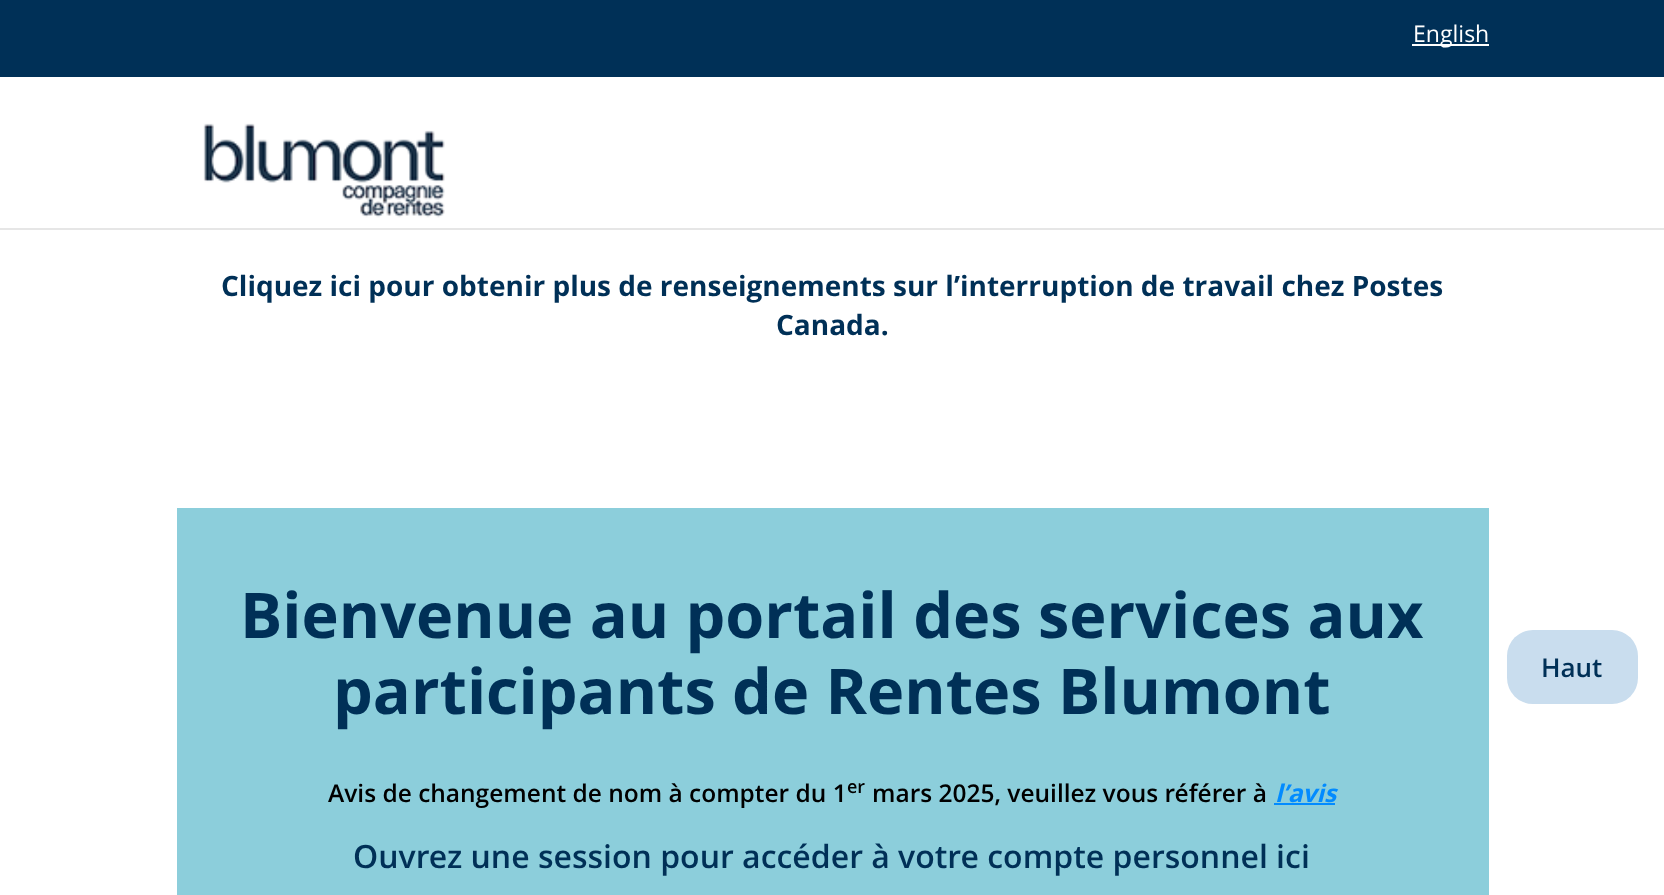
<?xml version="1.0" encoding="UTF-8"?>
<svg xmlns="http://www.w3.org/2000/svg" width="1664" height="895">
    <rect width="100%" height="100%" fill="#FFFFFF"/>
    <rect x="0" y="0" width="1664" height="77" fill="#003057"/>
    <rect x="1412" y="44" width="77" height="2" fill="#FFFFFF"/>
    <text x="1413" y="42" font-family="Open Sans" font-size="23" fill="#FFFFFF">English</text>
    <rect x="0" y="228" width="1664" height="2" fill="#E6E6E6"/>
    <image x="203" y="123" width="242" height="95" href="img_01.png"/>
    <text x="221" y="296" font-family="Open Sans" font-size="28" font-weight="700" fill="#003057">Cliquez ici pour obtenir plus de renseignements sur l’interruption de travail chez Postes</text>
    <text x="776" y="335" font-family="Open Sans" font-size="28" font-weight="700" fill="#003057">Canada.</text>
    <rect x="177" y="508" width="1312" height="387" fill="#8CCEDB"/>
    <text x="240" y="638" font-family="Open Sans" font-size="63" font-weight="700" fill="#003057">Bienvenue au portail des services aux</text>
    <text x="333" y="714" font-family="Open Sans" font-size="63" font-weight="700" fill="#003057">participants de Rentes Blumont</text>
    <text x="328" y="802" font-family="Open Sans" font-size="24.5" font-weight="600" fill="#000000">Avis de changement de nom à compter du 1</text>
    <text x="847" y="793" font-family="Open Sans" font-size="18" font-weight="600" fill="#000000">er</text>
    <text x="872" y="802" font-family="Open Sans" font-size="24.5" font-weight="600" fill="#000000">mars 2025, veuillez vous référer à</text>
    <text x="1275" y="802" font-family="Open Sans" font-size="24.5" font-weight="700" font-style="italic" fill="#028BFF">l’avis</text>
    <rect x="1274" y="803" width="61" height="2" fill="#028BFF"/>
    <text x="353" y="868" font-family="Open Sans" font-size="32" font-weight="600" fill="#003057">Ouvrez une session pour accéder à votre compte personnel ici</text>
    <rect x="1507" y="630" width="131" height="74" rx="26" fill="#C9DDEE"/>
    <text x="1541" y="677" font-family="Open Sans" font-size="26" font-weight="600" fill="#003057">Haut</text>
</svg>
